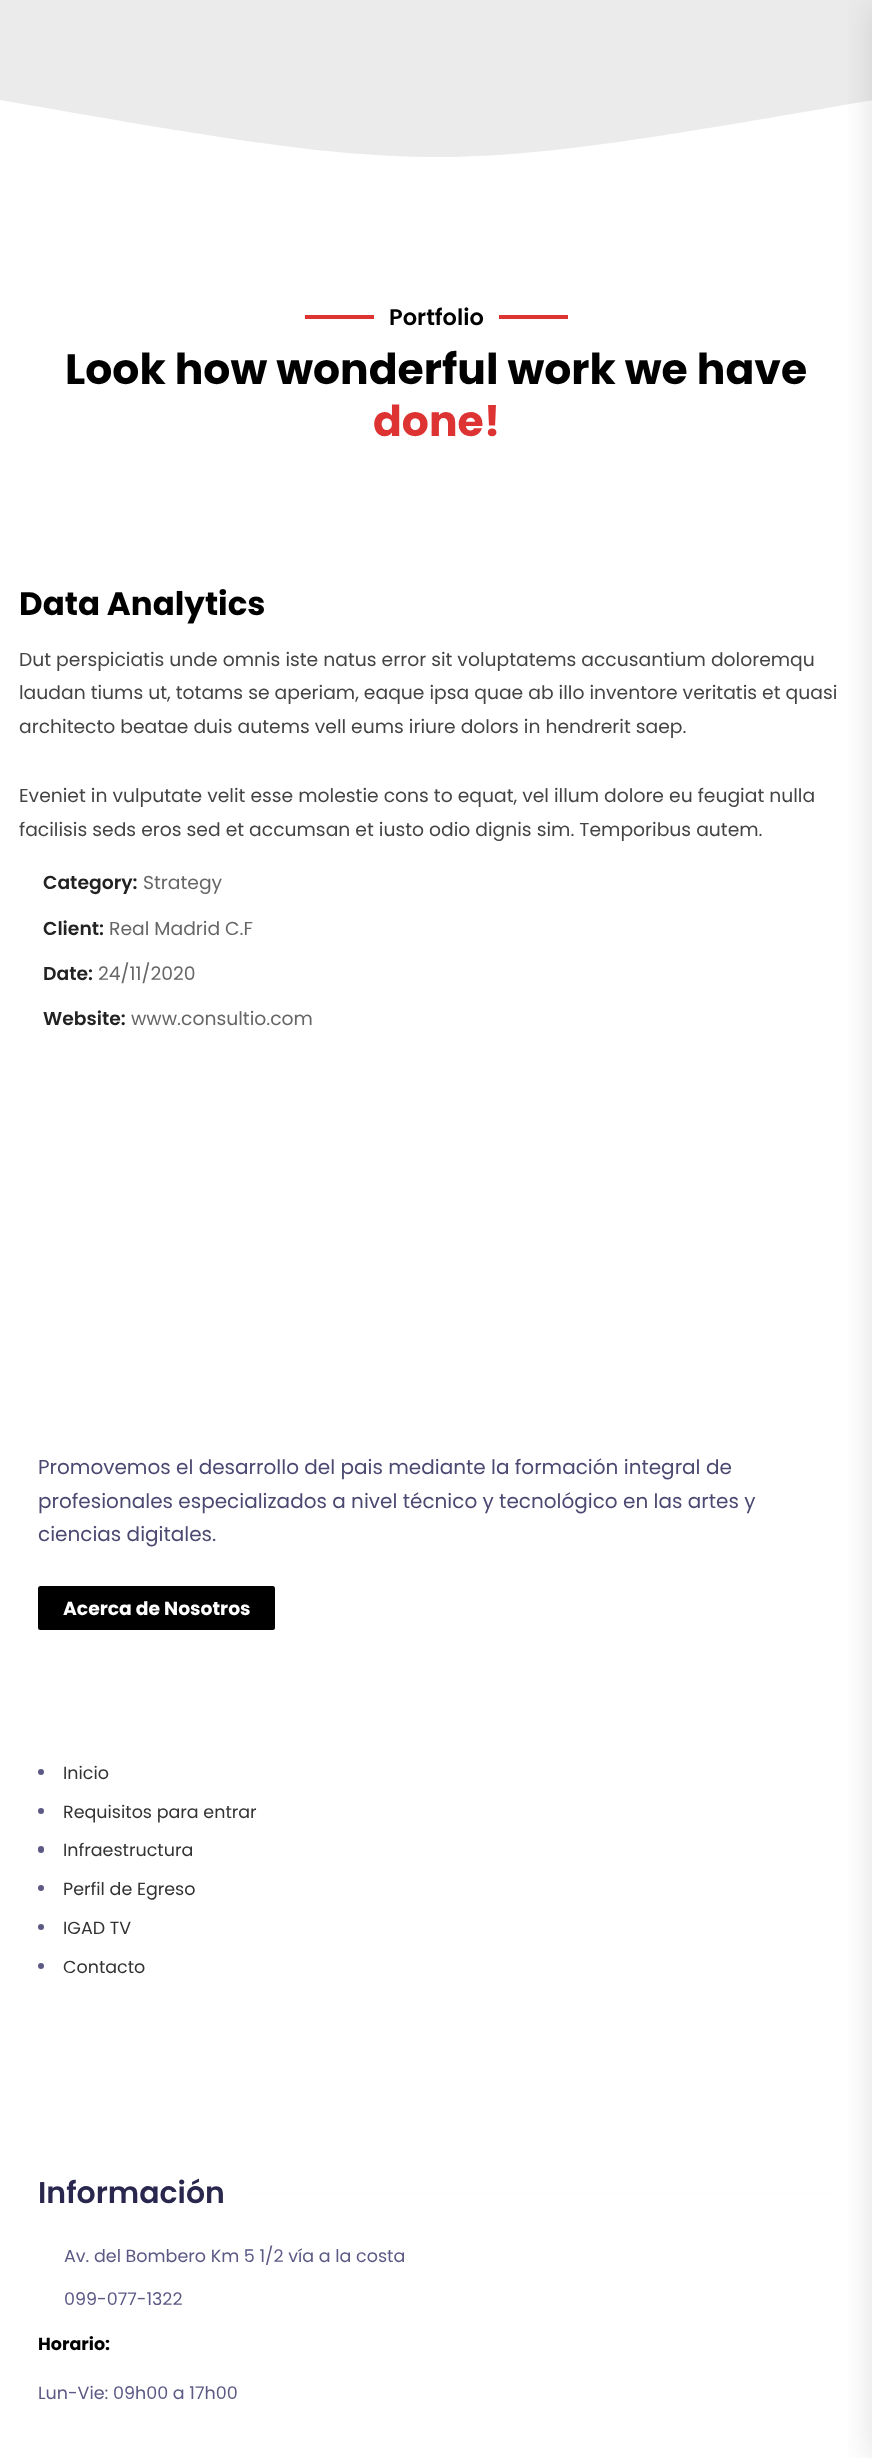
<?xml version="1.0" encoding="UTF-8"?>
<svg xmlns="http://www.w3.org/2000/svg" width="872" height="2458">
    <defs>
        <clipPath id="clip1"><rect x="0" y="100" width="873" height="75"/></clipPath>
        <filter id="blur1" x="-50%" y="-200%" width="200%" height="500%"><feGaussianBlur stdDeviation="17"/></filter>
    </defs>
    <rect width="100%" height="100%" fill="#FFFFFF"/>
    <rect x="0" y="0" width="872" height="157" fill="#EBEBEB"/>
    <g clip-path="url(#clip1)">
        <path d="M 0 100 C 436 176 436 176 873 100 V 176 H 0" fill="#FFFFFF"/>
    </g>
    <rect x="305" y="315" width="69" height="4" fill="#DD3333"/>
    <text x="389" y="325" font-family="Poppins" font-size="22.5" font-weight="600" fill="#000000">Portfolio</text>
    <rect x="499" y="315" width="69" height="4" fill="#DD3333"/>
    <text x="65" y="384" font-family="Poppins" font-size="42.5" font-weight="700" fill="#000000">Look how wonderful work we have</text>
    <text x="373" y="436" font-family="Poppins" font-size="42.5" font-weight="700" fill="#DD3333">done!</text>
    <text x="19" y="615" font-family="Poppins" font-size="32.5" font-weight="700" fill="#000000">Data Analytics</text>
    <text font-family="Poppins" font-size="18.75" fill="#444444">
        <tspan x="19" y="666">Dut perspiciatis unde omnis iste natus error sit voluptatems accusantium doloremqu</tspan>
        <tspan x="19" y="699">laudan tiums ut, totams se aperiam, eaque ipsa quae ab illo inventore veritatis et quasi</tspan>
        <tspan x="19" y="733">architecto beatae duis autems vell eums iriure dolors in hendrerit saep.</tspan>
    </text>
    <text font-family="Poppins" font-size="18.75" fill="#444444">
        <tspan x="19" y="802">Eveniet in vulputate velit esse molestie cons to equat, vel illum dolore eu feugiat nulla</tspan>
        <tspan x="19" y="836">facilisis seds eros sed et accumsan et iusto odio dignis sim. Temporibus autem.</tspan>
    </text>
    <text x="43" y="889" font-family="Poppins" font-size="18.75" font-weight="600" fill="#222222">Category:</text>
    <text x="143" y="889" font-family="Poppins" font-size="18.75" fill="#666666">Strategy</text>
    <text x="43" y="935" font-family="Poppins" font-size="18.75" font-weight="600" fill="#222222">Client:</text>
    <text x="109" y="935" font-family="Poppins" font-size="18.75" fill="#666666">Real Madrid C.F</text>
    <text x="43" y="980" font-family="Poppins" font-size="18.75" font-weight="600" fill="#222222">Date:</text>
    <text x="98" y="980" font-family="Poppins" font-size="18.75" fill="#666666">24/11/2020</text>
    <text x="43" y="1025" font-family="Poppins" font-size="18.75" font-weight="600" fill="#222222">Website:</text>
    <text x="131" y="1025" font-family="Poppins" font-size="18.75" fill="#666666">www.consultio.com</text>
    <text font-family="Poppins" font-size="20" fill="#4B4971">
        <tspan x="38" y="1474">Promovemos el desarrollo del pais mediante la formación integral de</tspan>
        <tspan x="38" y="1508">profesionales especializados a nivel técnico y tecnológico en las artes y</tspan>
        <tspan x="38" y="1541">ciencias digitales.</tspan>
    </text>
    <rect x="38" y="1586" width="237" height="44" rx="2.5" fill="#000000"/>
    <text x="63" y="1615" font-family="Poppins" font-size="18.75" font-weight="700" fill="#FFFFFF">Acerca de Nosotros</text>
    <circle cx="41" cy="1772" r="3" fill="#5C5A85"/>
    <text x="63" y="1779" font-family="Poppins" font-size="17.5" fill="#333333">Inicio</text>
    <circle cx="41" cy="1811" r="3" fill="#5C5A85"/>
    <text x="63" y="1818" font-family="Poppins" font-size="17.5" fill="#333333">Requisitos para entrar</text>
    <rect x="38" y="1846" width="6" height="7" rx="3" fill="#5C5A85"/>
    <text x="63" y="1856" font-family="Poppins" font-size="17.5" fill="#333333">Infraestructura</text>
    <circle cx="41" cy="1888" r="3" fill="#5C5A85"/>
    <text x="63" y="1895" font-family="Poppins" font-size="17.5" fill="#333333">Perfil de Egreso</text>
    <circle cx="41" cy="1927" r="3" fill="#5C5A85"/>
    <text x="63" y="1934" font-family="Poppins" font-size="17.5" fill="#333333">IGAD TV</text>
    <circle cx="41" cy="1966" r="3" fill="#5C5A85"/>
    <text x="63" y="1973" font-family="Poppins" font-size="17.5" fill="#333333">Contacto</text>
    <text x="38" y="2203" font-family="Poppins" font-size="30" font-weight="600" fill="#29274E">Información</text>
    <rect x="250" y="2193" width="585" height="1" fill="#FCFCFC"/>
    <text x="64" y="2262" font-family="Poppins" font-size="17.5" fill="#5C5A85">Av. del Bombero Km 5 1/2 vía a la costa</text>
    <text x="64" y="2305" font-family="Poppins" font-size="17.5" fill="#5C5A85">099-077-1322</text>
    <text x="38" y="2350" font-family="Poppins" font-size="17.5" font-weight="700" fill="#000000">Horario:</text>
    <text x="38" y="2399" font-family="Poppins" font-size="17.5" fill="#5C5A85">Lun-Vie: 09h00 a 17h00</text>
    <rect x="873" y="3" width="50" height="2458" fill="#363636" fill-opacity="0.13" filter="url(#blur1)"/>
</svg>
